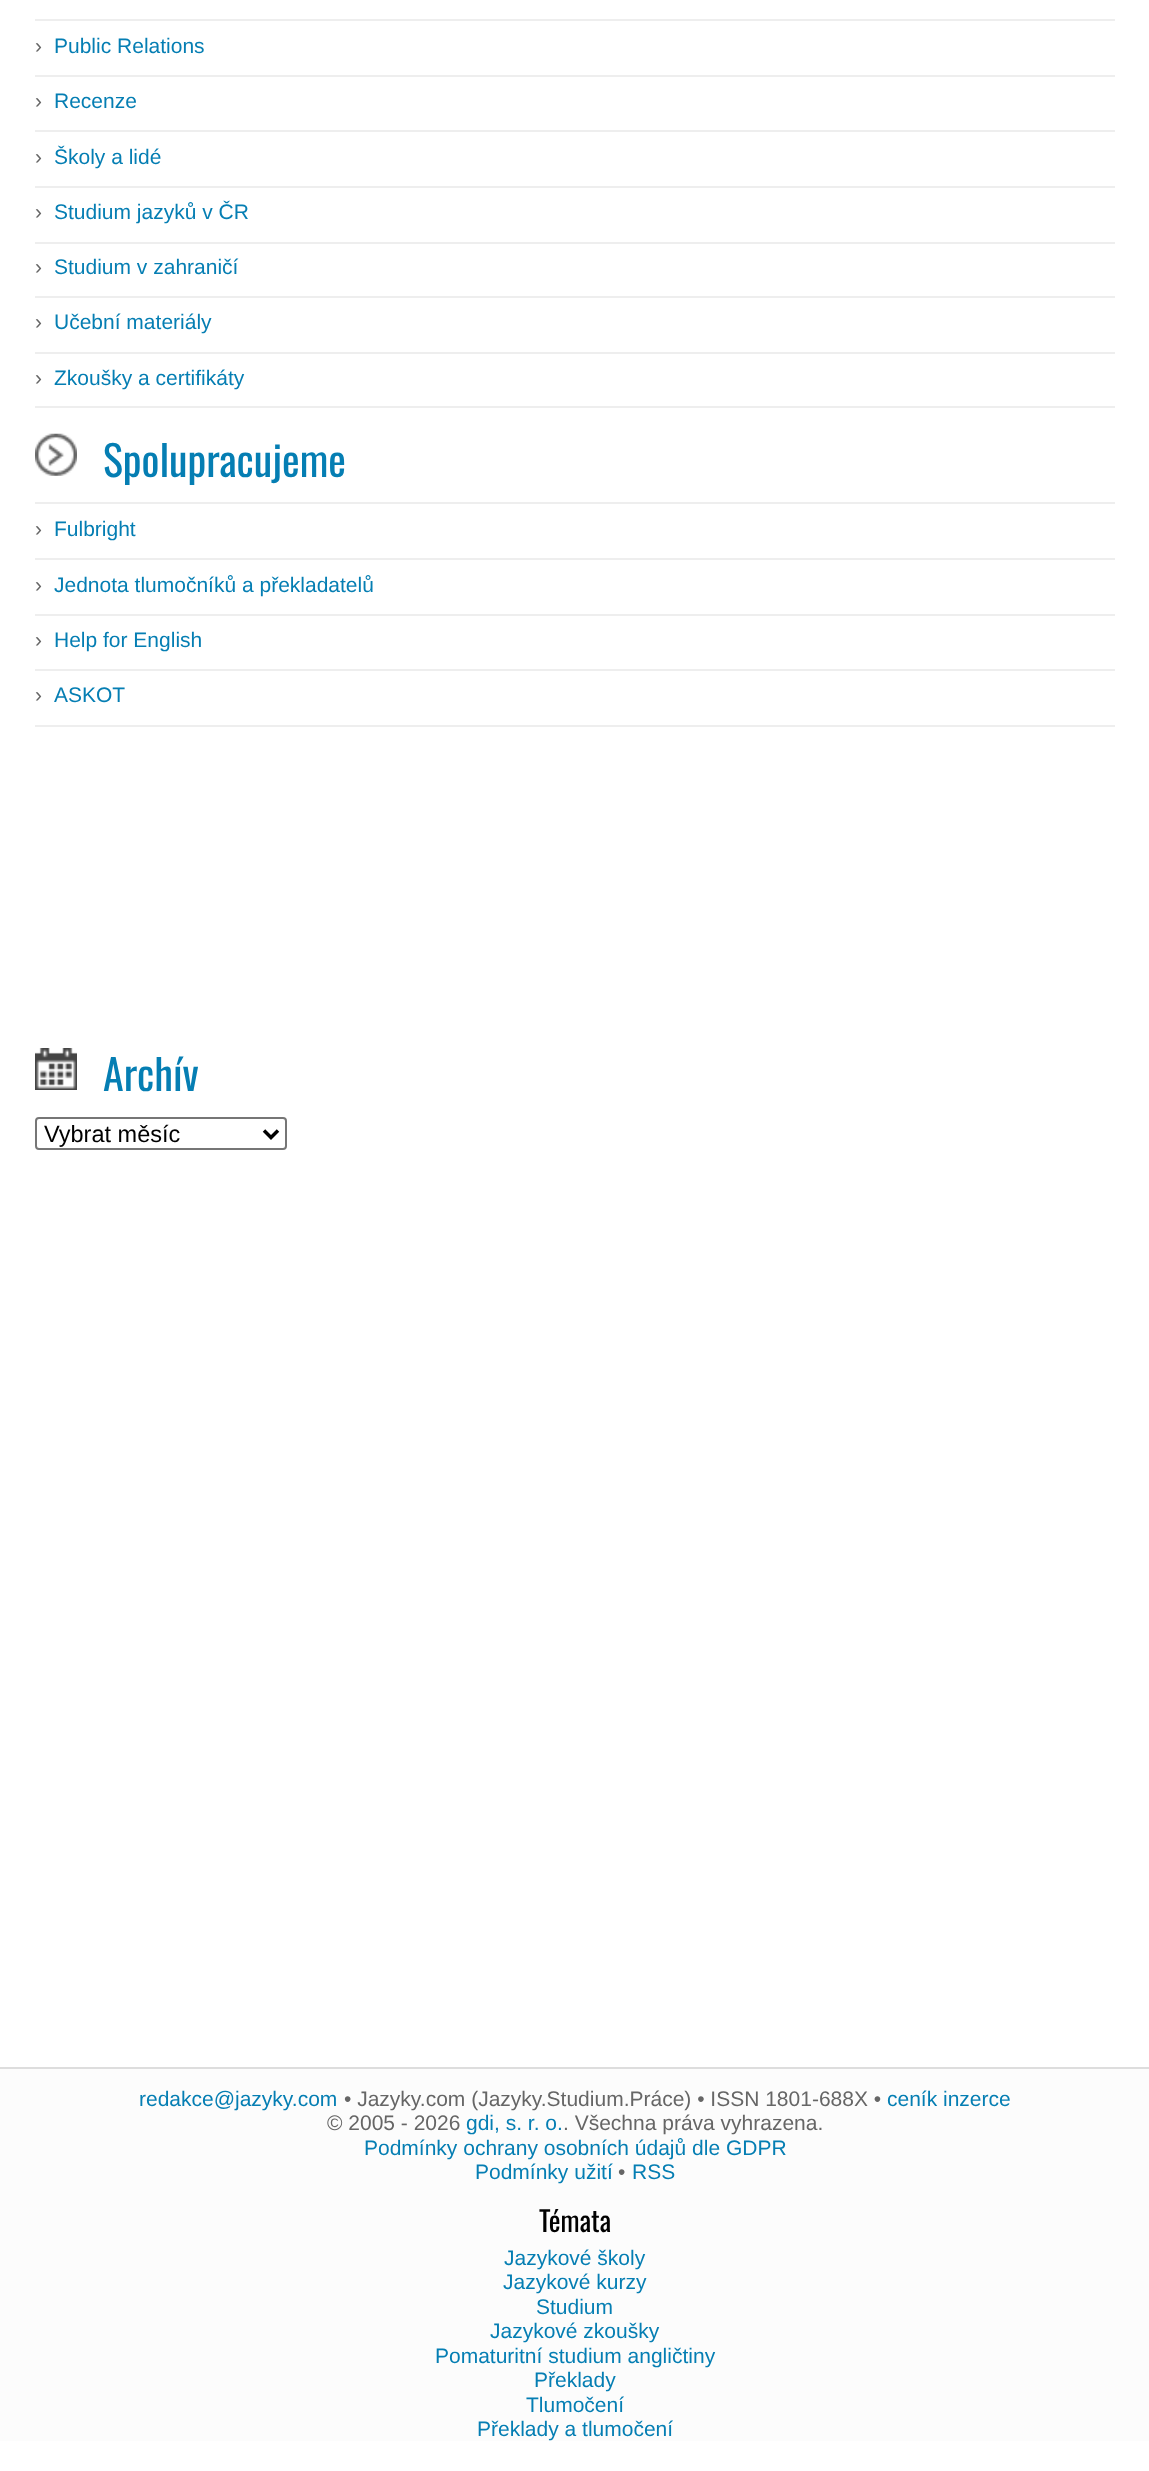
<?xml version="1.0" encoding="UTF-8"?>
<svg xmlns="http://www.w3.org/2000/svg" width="1149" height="2471">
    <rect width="100%" height="100%" fill="#FFFFFF"/>
    <rect x="35" y="19" width="1080" height="2" fill="#EEEEEE"/>
    <rect x="35" y="75" width="1080" height="2" fill="#EEEEEE"/>
    <text x="35" y="53" font-family="Liberation Sans" font-size="21" fill="#666666">›</text>
    <text x="54" y="53" font-family="Liberation Sans" font-size="21" fill="#057EB3">Public Relations</text>
    <rect x="35" y="130" width="1080" height="2" fill="#EEEEEE"/>
    <text x="35" y="108" font-family="Liberation Sans" font-size="21" fill="#666666">›</text>
    <text x="54" y="108" font-family="Liberation Sans" font-size="21" fill="#057EB3">Recenze</text>
    <rect x="35" y="186" width="1080" height="2" fill="#EEEEEE"/>
    <text x="35" y="164" font-family="Liberation Sans" font-size="21" fill="#666666">›</text>
    <text x="54" y="164" font-family="Liberation Sans" font-size="21" fill="#057EB3">Školy a lidé</text>
    <rect x="35" y="242" width="1080" height="2" fill="#EEEEEE"/>
    <text x="35" y="219" font-family="Liberation Sans" font-size="21" fill="#666666">›</text>
    <text x="54" y="219" font-family="Liberation Sans" font-size="21" fill="#057EB3">Studium jazyků v ČR</text>
    <rect x="35" y="296" width="1080" height="2" fill="#EEEEEE"/>
    <text x="35" y="274" font-family="Liberation Sans" font-size="21" fill="#666666">›</text>
    <text x="54" y="274" font-family="Liberation Sans" font-size="21" fill="#057EB3">Studium v zahraničí</text>
    <rect x="35" y="352" width="1080" height="2" fill="#EEEEEE"/>
    <text x="35" y="329" font-family="Liberation Sans" font-size="21" fill="#666666">›</text>
    <text x="54" y="329" font-family="Liberation Sans" font-size="21" fill="#057EB3">Učební materiály</text>
    <rect x="35" y="406" width="1080" height="2" fill="#EEEEEE"/>
    <text x="35" y="385" font-family="Liberation Sans" font-size="21" fill="#666666">›</text>
    <text x="54" y="385" font-family="Liberation Sans" font-size="21" fill="#057EB3">Zkoušky a certifikáty</text>
    <image x="35" y="433" width="42" height="43" href="img_01.png"/>
    <text x="103" y="477" font-family="Oswald" font-size="42" fill="#057EB3">Spolupracujeme</text>
    <rect x="35" y="502" width="1080" height="2" fill="#EEEEEE"/>
    <rect x="35" y="558" width="1080" height="2" fill="#EEEEEE"/>
    <text x="35" y="536" font-family="Liberation Sans" font-size="21" fill="#666666">›</text>
    <text x="54" y="536" font-family="Liberation Sans" font-size="21" fill="#057EB3">Fulbright</text>
    <rect x="35" y="614" width="1080" height="2" fill="#EEEEEE"/>
    <text x="35" y="592" font-family="Liberation Sans" font-size="21" fill="#666666">›</text>
    <text x="54" y="592" font-family="Liberation Sans" font-size="21" fill="#057EB3">Jednota tlumočníků a překladatelů</text>
    <rect x="35" y="669" width="1080" height="2" fill="#EEEEEE"/>
    <text x="35" y="647" font-family="Liberation Sans" font-size="21" fill="#666666">›</text>
    <text x="54" y="647" font-family="Liberation Sans" font-size="21" fill="#057EB3">Help for English</text>
    <rect x="35" y="725" width="1080" height="2" fill="#EEEEEE"/>
    <text x="35" y="702" font-family="Liberation Sans" font-size="21" fill="#666666">›</text>
    <text x="54" y="702" font-family="Liberation Sans" font-size="21" fill="#057EB3">ASKOT</text>
    <image x="35" y="1048" width="42" height="42" href="img_02.png"/>
    <text x="103" y="1091" font-family="Oswald" font-size="42" fill="#057EB3">Archív</text>
    <rect x="36" y="1118" width="250" height="31" rx="3" fill="none" stroke="#767676" stroke-width="2"/>
    <path d="M 264 1130.5 L 271 1137.5 L 278 1130.5" fill="none" stroke="#000000" stroke-width="3.5"/>
    <text x="44" y="1142" font-family="Liberation Sans" font-size="23.5" fill="#000000">Vybrat měsíc</text>
    <rect x="0" y="2069" width="1149" height="372" fill="#FCFCFC"/>
    <rect x="0" y="2067" width="1149" height="2" fill="#DDDDDD"/>
    <text x="139" y="2106" font-family="Liberation Sans" font-size="21" fill="#057EB3">redakce@jazyky.com</text>
    <text x="344" y="2106" font-family="Liberation Sans" font-size="21" fill="#666666">• Jazyky.com (Jazyky.Studium.Práce) • ISSN 1801-688X •</text>
    <text x="887" y="2106" font-family="Liberation Sans" font-size="21" fill="#057EB3">ceník inzerce</text>
    <text x="327" y="2130" font-family="Liberation Sans" font-size="21" fill="#666666">© 2005 - 2026</text>
    <text x="466" y="2130" font-family="Liberation Sans" font-size="21" fill="#057EB3">gdi, s. r. o.</text>
    <text x="563" y="2130" font-family="Liberation Sans" font-size="21" fill="#666666">. Všechna práva vyhrazena.</text>
    <text x="364" y="2155" font-family="Liberation Sans" font-size="21" fill="#057EB3">Podmínky ochrany osobních údajů dle GDPR</text>
    <text x="475" y="2179" font-family="Liberation Sans" font-size="21" fill="#057EB3">Podmínky užití</text>
    <text x="618" y="2179" font-family="Liberation Sans" font-size="21" fill="#666666">•</text>
    <text x="632" y="2179" font-family="Liberation Sans" font-size="21" fill="#057EB3">RSS</text>
    <text x="539" y="2232" font-family="Oswald" font-size="28" fill="#000000">Témata</text>
    <text x="504" y="2265" font-family="Liberation Sans" font-size="21" fill="#057EB3">Jazykové školy</text>
    <text x="503" y="2289" font-family="Liberation Sans" font-size="21" fill="#057EB3">Jazykové kurzy</text>
    <text x="536" y="2314" font-family="Liberation Sans" font-size="21" fill="#057EB3">Studium</text>
    <text x="490" y="2338" font-family="Liberation Sans" font-size="21" fill="#057EB3">Jazykové zkoušky</text>
    <text x="435" y="2363" font-family="Liberation Sans" font-size="21" fill="#057EB3">Pomaturitní studium angličtiny</text>
    <text x="534" y="2387" font-family="Liberation Sans" font-size="21" fill="#057EB3">Překlady</text>
    <text x="526" y="2412" font-family="Liberation Sans" font-size="21" fill="#057EB3">Tlumočení</text>
    <text x="477" y="2436" font-family="Liberation Sans" font-size="21" fill="#057EB3">Překlady a tlumočení</text>
</svg>
